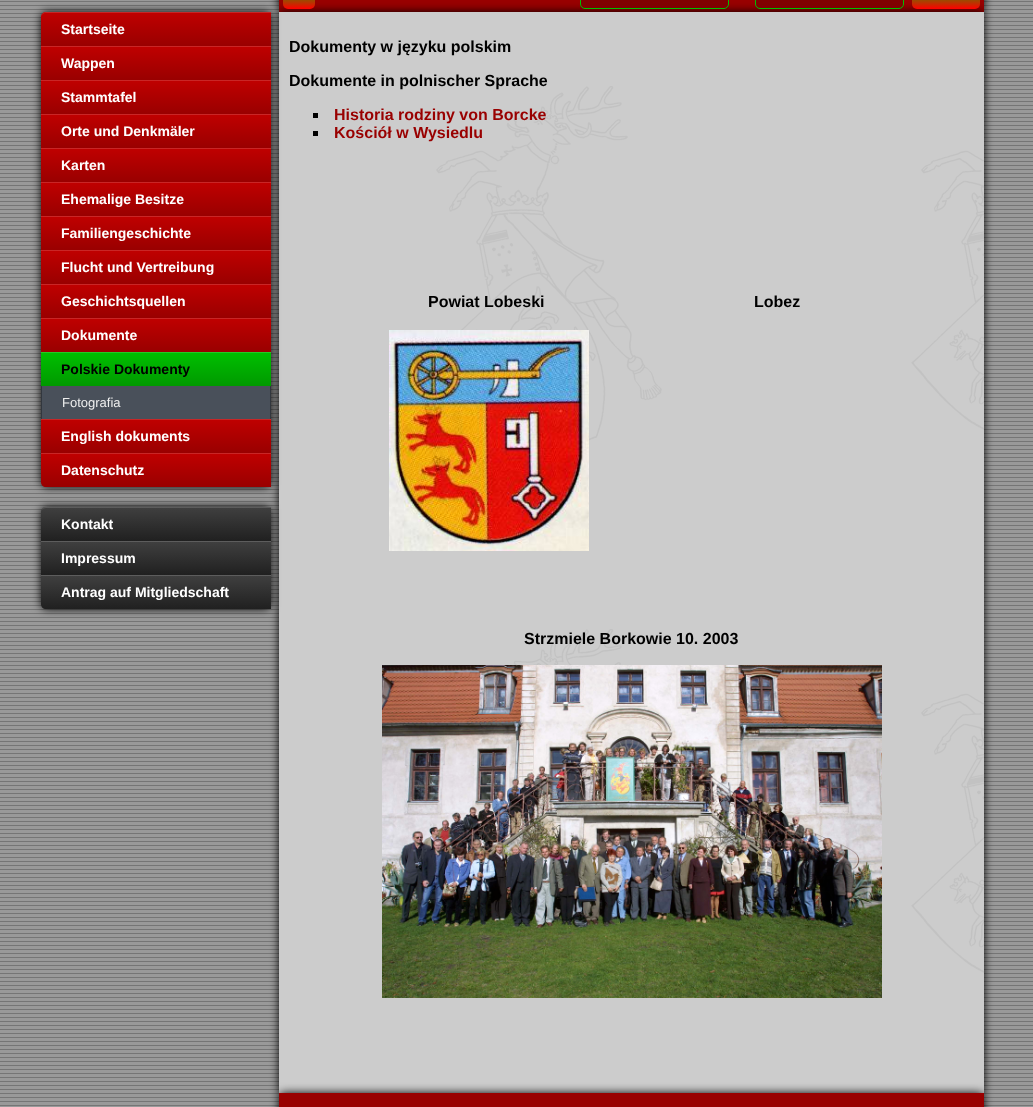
<?xml version="1.0" encoding="UTF-8"?>
<svg xmlns="http://www.w3.org/2000/svg" width="1033" height="1107">
    <defs>
        <filter id="blur1" x="-50%" y="-200%" width="200%" height="500%"><feGaussianBlur stdDeviation="5"/></filter>
        <linearGradient id="g1" gradientUnits="userSpaceOnUse" x1="299" y1="-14" x2="299" y2="9"><stop offset="0" stop-color="#00C000"/><stop offset="1" stop-color="#FF0000"/></linearGradient>
        <linearGradient id="g2" gradientUnits="userSpaceOnUse" x1="946" y1="-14" x2="946" y2="9"><stop offset="0" stop-color="#00C000"/><stop offset="1" stop-color="#FF0000"/></linearGradient>
        <linearGradient id="g3" gradientUnits="userSpaceOnUse" x1="156" y1="12" x2="156" y2="46"><stop offset="0" stop-color="#C00000"/><stop offset="1" stop-color="#990000"/></linearGradient>
        <linearGradient id="g4" gradientUnits="userSpaceOnUse" x1="156" y1="46" x2="156" y2="80"><stop offset="0" stop-color="#C00000"/><stop offset="1" stop-color="#990000"/></linearGradient>
        <linearGradient id="g5" gradientUnits="userSpaceOnUse" x1="156" y1="80" x2="156" y2="114"><stop offset="0" stop-color="#C00000"/><stop offset="1" stop-color="#990000"/></linearGradient>
        <linearGradient id="g6" gradientUnits="userSpaceOnUse" x1="156" y1="114" x2="156" y2="148"><stop offset="0" stop-color="#C00000"/><stop offset="1" stop-color="#990000"/></linearGradient>
        <linearGradient id="g7" gradientUnits="userSpaceOnUse" x1="156" y1="148" x2="156" y2="182"><stop offset="0" stop-color="#C00000"/><stop offset="1" stop-color="#990000"/></linearGradient>
        <linearGradient id="g8" gradientUnits="userSpaceOnUse" x1="156" y1="182" x2="156" y2="216"><stop offset="0" stop-color="#C00000"/><stop offset="1" stop-color="#990000"/></linearGradient>
        <linearGradient id="g9" gradientUnits="userSpaceOnUse" x1="156" y1="216" x2="156" y2="250"><stop offset="0" stop-color="#C00000"/><stop offset="1" stop-color="#990000"/></linearGradient>
        <linearGradient id="g10" gradientUnits="userSpaceOnUse" x1="156" y1="250" x2="156" y2="284"><stop offset="0" stop-color="#C00000"/><stop offset="1" stop-color="#990000"/></linearGradient>
        <linearGradient id="g11" gradientUnits="userSpaceOnUse" x1="156" y1="284" x2="156" y2="318"><stop offset="0" stop-color="#C00000"/><stop offset="1" stop-color="#990000"/></linearGradient>
        <linearGradient id="g12" gradientUnits="userSpaceOnUse" x1="156" y1="318" x2="156" y2="352"><stop offset="0" stop-color="#C00000"/><stop offset="1" stop-color="#990000"/></linearGradient>
        <linearGradient id="g13" gradientUnits="userSpaceOnUse" x1="156" y1="352" x2="156" y2="386"><stop offset="0" stop-color="#00C000"/><stop offset="1" stop-color="#009900"/></linearGradient>
        <linearGradient id="g14" gradientUnits="userSpaceOnUse" x1="156" y1="419" x2="156" y2="453"><stop offset="0" stop-color="#C00000"/><stop offset="1" stop-color="#990000"/></linearGradient>
        <linearGradient id="g15" gradientUnits="userSpaceOnUse" x1="156" y1="453" x2="156" y2="487"><stop offset="0" stop-color="#C00000"/><stop offset="1" stop-color="#990000"/></linearGradient>
        <linearGradient id="g16" gradientUnits="userSpaceOnUse" x1="156" y1="507" x2="156" y2="541"><stop offset="0" stop-color="#404040"/><stop offset="1" stop-color="#202020"/></linearGradient>
        <linearGradient id="g17" gradientUnits="userSpaceOnUse" x1="156" y1="541" x2="156" y2="575"><stop offset="0" stop-color="#404040"/><stop offset="1" stop-color="#202020"/></linearGradient>
        <linearGradient id="g18" gradientUnits="userSpaceOnUse" x1="156" y1="575" x2="156" y2="609"><stop offset="0" stop-color="#404040"/><stop offset="1" stop-color="#202020"/></linearGradient>
    </defs>
    <rect width="100%" height="100%" fill="#FFFFFF"/>
    <image x="0" y="0" width="1033" height="1107" href="img_01.png"/>
    <rect x="279" y="-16" width="705" height="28" rx="5" fill="#000000" filter="url(#blur1)"/>
    <rect x="279" y="0" width="705" height="12" fill="#990000"/>
    <rect x="279" y="12" width="705" height="1081" fill="#000000" filter="url(#blur1)"/>
    <rect x="283" y="-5" width="32" height="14" rx="5" fill="url(#g1)"/>
    <rect x="580.5" y="-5.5" width="148" height="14" rx="4.5" fill="#800000" stroke="#00C000"/>
    <rect x="755.5" y="-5.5" width="148" height="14" rx="4.5" fill="#800000" stroke="#00C000"/>
    <rect x="912" y="-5" width="68" height="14" rx="5" fill="url(#g2)"/>
    <image x="279" y="12" width="705" height="1081" href="img_02.png"/>
    <rect x="41" y="12" width="230" height="475" rx="5" fill="#000000" filter="url(#blur1)"/>
    <path d="M 46 12 H 271 V 46 H 41 V 17 C 41 14 43 12 46 12 Z" fill="url(#g3)"/>
    <path d="M 46 13 H 271 V 12 H 46 C 43 12 41 15 41 18 C 41 15 43 13 46 13 Z" fill="#FFFFFF" fill-opacity="0.15"/>
    <text x="61" y="34" font-family="Liberation Sans" font-size="14" font-weight="700" fill="#FFFFFF">Startseite</text>
    <rect x="41" y="47" width="230" height="33" fill="url(#g4)"/>
    <rect x="41" y="46" width="230" height="1" fill="#C92626"/>
    <text x="61" y="68" font-family="Liberation Sans" font-size="14" font-weight="700" fill="#FFFFFF">Wappen</text>
    <rect x="41" y="81" width="230" height="33" fill="url(#g5)"/>
    <rect x="41" y="80" width="230" height="1" fill="#C92626"/>
    <text x="61" y="102" font-family="Liberation Sans" font-size="14" font-weight="700" fill="#FFFFFF">Stammtafel</text>
    <rect x="41" y="115" width="230" height="33" fill="url(#g6)"/>
    <rect x="41" y="114" width="230" height="1" fill="#C92626"/>
    <text x="61" y="136" font-family="Liberation Sans" font-size="14" font-weight="700" fill="#FFFFFF">Orte und Denkmäler</text>
    <rect x="41" y="149" width="230" height="33" fill="url(#g7)"/>
    <rect x="41" y="148" width="230" height="1" fill="#C92626"/>
    <text x="61" y="170" font-family="Liberation Sans" font-size="14" font-weight="700" fill="#FFFFFF">Karten</text>
    <rect x="41" y="183" width="230" height="33" fill="url(#g8)"/>
    <rect x="41" y="182" width="230" height="1" fill="#C92626"/>
    <text x="61" y="204" font-family="Liberation Sans" font-size="14" font-weight="700" fill="#FFFFFF">Ehemalige Besitze</text>
    <rect x="41" y="217" width="230" height="33" fill="url(#g9)"/>
    <rect x="41" y="216" width="230" height="1" fill="#C92626"/>
    <text x="61" y="238" font-family="Liberation Sans" font-size="14" font-weight="700" fill="#FFFFFF">Familiengeschichte</text>
    <rect x="41" y="251" width="230" height="33" fill="url(#g10)"/>
    <rect x="41" y="250" width="230" height="1" fill="#C92626"/>
    <text x="61" y="272" font-family="Liberation Sans" font-size="14" font-weight="700" fill="#FFFFFF">Flucht und Vertreibung</text>
    <rect x="41" y="285" width="230" height="33" fill="url(#g11)"/>
    <rect x="41" y="284" width="230" height="1" fill="#C92626"/>
    <text x="61" y="306" font-family="Liberation Sans" font-size="14" font-weight="700" fill="#FFFFFF">Geschichtsquellen</text>
    <rect x="41" y="319" width="230" height="33" fill="url(#g12)"/>
    <rect x="41" y="318" width="230" height="1" fill="#C92626"/>
    <text x="61" y="340" font-family="Liberation Sans" font-size="14" font-weight="700" fill="#FFFFFF">Dokumente</text>
    <rect x="41" y="353" width="230" height="33" fill="url(#g13)"/>
    <rect x="41" y="352" width="230" height="1" fill="#26C926"/>
    <text x="61" y="374" font-family="Liberation Sans" font-size="14" font-weight="700" fill="#000000">Polskie Dokumenty</text>
    <rect x="42" y="386" width="228" height="33" fill="#49505A"/>
    <rect x="270" y="386" width="1" height="33" fill="#32373E"/>
    <rect x="41" y="386" width="1" height="33" fill="#32373E"/>
    <text x="62" y="407" font-family="Liberation Sans" font-size="13" fill="#EEEEEE">Fotografia</text>
    <rect x="41" y="420" width="230" height="33" fill="url(#g14)"/>
    <rect x="41" y="419" width="230" height="1" fill="#C92626"/>
    <text x="61" y="441" font-family="Liberation Sans" font-size="14" font-weight="700" fill="#FFFFFF">English dokuments</text>
    <path d="M 41 453 H 271 V 487 H 46 C 43 487 41 485 41 482 Z" fill="url(#g15)"/>
    <rect x="41" y="453" width="230" height="1" fill="#C92626"/>
    <text x="61" y="475" font-family="Liberation Sans" font-size="14" font-weight="700" fill="#FFFFFF">Datenschutz</text>
    <rect x="41" y="507" width="230" height="102" rx="5" fill="#000000" filter="url(#blur1)"/>
    <path d="M 46 507 H 271 V 541 H 41 V 512 C 41 509 43 507 46 507 Z" fill="url(#g16)"/>
    <path d="M 46 508 H 271 V 507 H 46 C 43 507 41 510 41 513 C 41 510 43 508 46 508 Z" fill="#FFFFFF" fill-opacity="0.15"/>
    <text x="61" y="529" font-family="Liberation Sans" font-size="14" font-weight="700" fill="#FFFFFF">Kontakt</text>
    <rect x="41" y="542" width="230" height="33" fill="url(#g17)"/>
    <rect x="41" y="541" width="230" height="1" fill="#5D5D5D"/>
    <text x="61" y="563" font-family="Liberation Sans" font-size="14" font-weight="700" fill="#FFFFFF">Impressum</text>
    <path d="M 41 575 H 271 V 609 H 46 C 43 609 41 607 41 604 Z" fill="url(#g18)"/>
    <rect x="41" y="575" width="230" height="1" fill="#5D5D5D"/>
    <text x="61" y="597" font-family="Liberation Sans" font-size="14" font-weight="700" fill="#FFFFFF">Antrag auf Mitgliedschaft</text>
    <text x="289" y="52" font-family="Liberation Sans" font-size="16" font-weight="700" fill="#000000">Dokumenty w języku polskim</text>
    <text x="289" y="86" font-family="Liberation Sans" font-size="16" font-weight="700" fill="#000000">Dokumente in polnischer Sprache</text>
    <rect x="313" y="113" width="5" height="5" fill="#000000"/>
    <text x="334" y="120" font-family="Liberation Sans" font-size="16" font-weight="700" fill="#990000">Historia rodziny von Borcke</text>
    <rect x="313" y="131" width="5" height="5" fill="#000000"/>
    <text x="334" y="138" font-family="Liberation Sans" font-size="16" font-weight="700" fill="#990000">Kościół w Wysiedlu</text>
    <text x="428" y="307" font-family="Liberation Sans" font-size="16" font-weight="700" fill="#000000">Powiat Lobeski</text>
    <text x="754" y="307" font-family="Liberation Sans" font-size="16" font-weight="700" fill="#000000">Lobez</text>
    <image x="389" y="330" width="200" height="221" href="img_03.png"/>
    <text x="524" y="644" font-family="Liberation Sans" font-size="16" font-weight="700" fill="#000000">Strzmiele Borkowie 10. 2003</text>
    <image x="382" y="665" width="500" height="333" href="img_04.png"/>
    <rect x="279" y="1093" width="705" height="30" rx="5" fill="#000000" filter="url(#blur1)"/>
    <rect x="279" y="1093" width="705" height="14" fill="#990000"/>
</svg>
